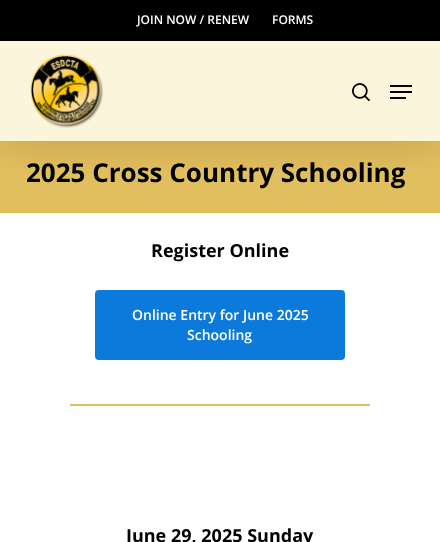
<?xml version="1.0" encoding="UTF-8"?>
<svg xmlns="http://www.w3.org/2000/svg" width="440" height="542">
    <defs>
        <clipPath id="clip1"><rect x="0" y="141" width="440" height="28"/></clipPath>
        <filter id="blur1" x="-50%" y="-200%" width="200%" height="500%"><feGaussianBlur stdDeviation="22.5"/></filter>
    </defs>
    <rect width="100%" height="100%" fill="#FFFFFF"/>
    <rect x="0" y="41" width="440" height="100" fill="#FAF5DB"/>
    <rect x="0" y="141" width="440" height="72" fill="#E2BF5E"/>
    <g clip-path="url(#clip1)">
        <rect x="0" y="3" width="440" height="141" fill="#000000" fill-opacity="0.15" filter="url(#blur1)"/>
    </g>
    <rect x="0" y="0" width="440" height="41" fill="#000000"/>
    <text x="137" y="24" font-family="Open Sans" font-size="12" font-weight="600" fill="#FFFFFF">JOIN NOW / RENEW</text>
    <text x="272" y="24" font-family="Open Sans" font-size="12" font-weight="600" fill="#FFFFFF">FORMS</text>
    <image x="30" y="54" width="73" height="74" href="img_01.png"/>
    <image x="352" y="83" width="18" height="19" href="img_02.png"/>
    <rect x="390" y="85" width="22" height="2" fill="#000000"/>
    <rect x="390" y="97" width="16" height="2" fill="#000000"/>
    <rect x="390" y="91" width="22" height="2" fill="#000000"/>
    <text x="26" y="182" font-family="Open Sans" font-size="26" font-weight="700" fill="#000000">2025 Cross Country Schooling</text>
    <text x="151" y="257" font-family="Open Sans" font-size="18" font-weight="700" fill="#000000">Register Online</text>
    <rect x="95" y="290" width="250" height="70" rx="4" fill="#0C7ADB"/>
    <text x="132" y="320" font-family="Open Sans" font-size="14" font-weight="600" fill="#FFFFFF">Online Entry for June 2025</text>
    <text x="187" y="340" font-family="Open Sans" font-size="14" font-weight="600" fill="#FFFFFF">Schooling</text>
    <rect x="70" y="404" width="300" height="2" fill="#E2BF5E"/>
    <text x="126" y="542" font-family="Open Sans" font-size="18" font-weight="700" fill="#000000">June 29, 2025 Sunday</text>
</svg>
